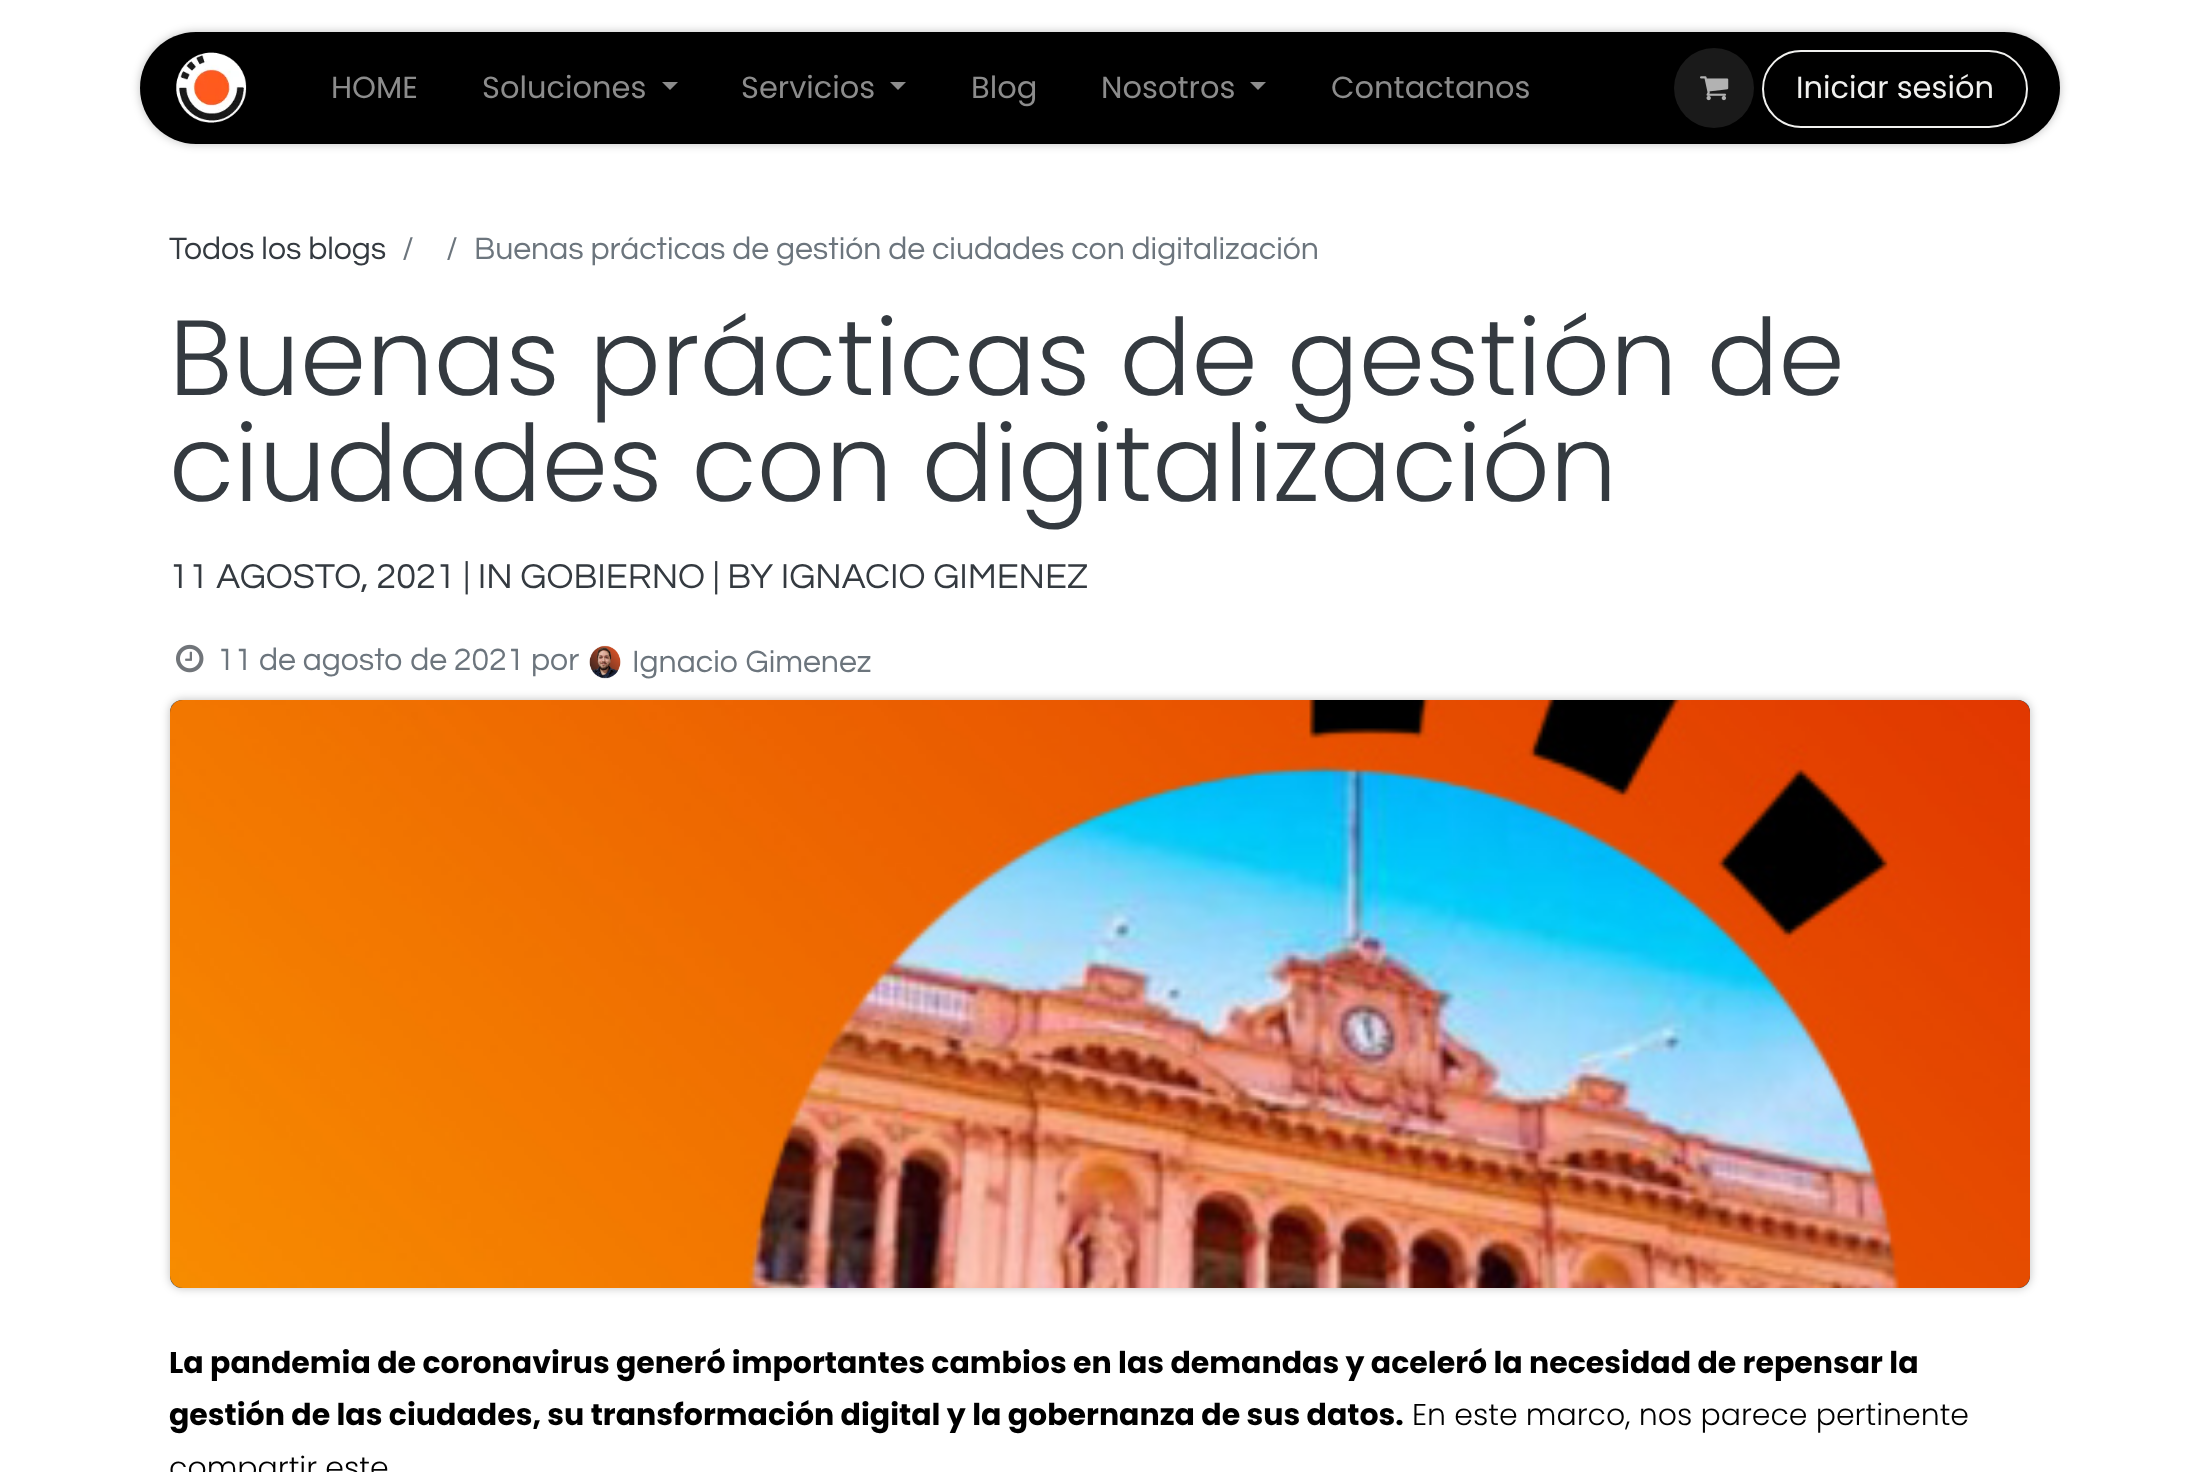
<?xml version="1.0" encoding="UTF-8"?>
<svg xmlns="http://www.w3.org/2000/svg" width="2198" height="1472">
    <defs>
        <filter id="blur1" x="-50%" y="-200%" width="200%" height="500%"><feGaussianBlur stdDeviation="5"/></filter>
    </defs>
    <rect width="100%" height="100%" fill="#FFFFFF"/>
    <rect x="140" y="32" width="1920" height="112" rx="56" fill="#000000" fill-opacity="0.25" filter="url(#blur1)"/>
    <rect x="140" y="32" width="1920" height="112" rx="56" fill="#000000"/>
    <image x="176" y="52" width="71" height="71" href="img_01.png"/>
    <text x="331" y="98" font-family="Poppins" font-size="30.5" fill="#8C8C8C">HOME</text>
    <text x="482" y="98" font-family="Poppins" font-size="30.5" fill="#8C8C8C">Soluciones</text>
    <path d="M 662 82 H 678 L 670 90 Z" fill="#8C8C8C"/>
    <text x="741" y="98" font-family="Poppins" font-size="30.5" fill="#8C8C8C">Servicios</text>
    <path d="M 890 82 H 906 L 898 90 Z" fill="#8C8C8C"/>
    <text x="971" y="98" font-family="Poppins" font-size="30.5" fill="#8C8C8C">Blog</text>
    <text x="1101" y="98" font-family="Poppins" font-size="30.5" fill="#8C8C8C">Nosotros</text>
    <path d="M 1250 82 H 1266 L 1258 90 Z" fill="#8C8C8C"/>
    <text x="1331" y="98" font-family="Poppins" font-size="30.5" fill="#8C8C8C">Contactanos</text>
    <circle cx="1714" cy="88" r="40" fill="#1A1A1A"/>
    <image x="1700" y="76" width="29" height="25" href="img_02.png"/>
    <rect x="1763" y="51" width="264" height="76" rx="38" fill="none" stroke="#F1F1EF" stroke-width="2"/>
    <text x="1796" y="98" font-family="Poppins" font-size="30.5" fill="#F1F1EF">Iniciar sesión</text>
    <text x="169" y="259" font-family="Questrial" font-size="32" fill="#343A40">Todos los blogs</text>
    <text x="402" y="259" font-family="Questrial" font-size="32" fill="#6C757D">/</text>
    <text x="446" y="259" font-family="Questrial" font-size="32" fill="#6C757D">/</text>
    <text x="474" y="259" font-family="Questrial" font-size="32" fill="#6C757D">Buenas prácticas de gestión de ciudades con digitalización</text>
    <text font-family="Poppins" font-size="106.5" font-weight="300" fill="#343A40">
        <tspan x="169" y="395">Buenas prácticas de gestión de</tspan>
        <tspan x="169" y="501">ciudades con digitalización</tspan>
    </text>
    <text x="169" y="588" font-family="Questrial" font-size="36" fill="#343A40">11 AGOSTO, 2021 | IN GOBIERNO | BY IGNACIO GIMENEZ</text>
    <image x="176" y="644" width="28" height="29" href="img_03.png"/>
    <text x="217" y="670" font-family="Questrial" font-size="32" fill="#6C757D">11 de agosto de 2021 por</text>
    <image x="589" y="645" width="32" height="34" href="img_04.png"/>
    <text x="632" y="672" font-family="Questrial" font-size="32" fill="#6C757D">Ignacio Gimenez</text>
    <rect x="170" y="700" width="1860" height="588" rx="12" fill="#000000" fill-opacity="0.25" filter="url(#blur1)"/>
    <rect x="170" y="700" width="1860" height="588" rx="12" fill="#343A40"/>
    <image x="170" y="700" width="1860" height="588" href="img_05.png"/>
    <text font-family="Poppins" font-size="30" font-weight="700" fill="#000000">
        <tspan x="169" y="1373">La pandemia de coronavirus generó importantes cambios en las demandas y aceleró la necesidad de repensar la</tspan>
        <tspan x="169" y="1425">gestión de las ciudades, su transformación digital y la gobernanza de sus datos.</tspan>
    </text>
    <text x="1412" y="1425" font-family="Poppins" font-size="30" font-weight="300" fill="#000000">En este marco, nos parece pertinente</text>
    <text x="169" y="1478" font-family="Poppins" font-size="30" font-weight="300" fill="#000000">compartir este</text>
</svg>
